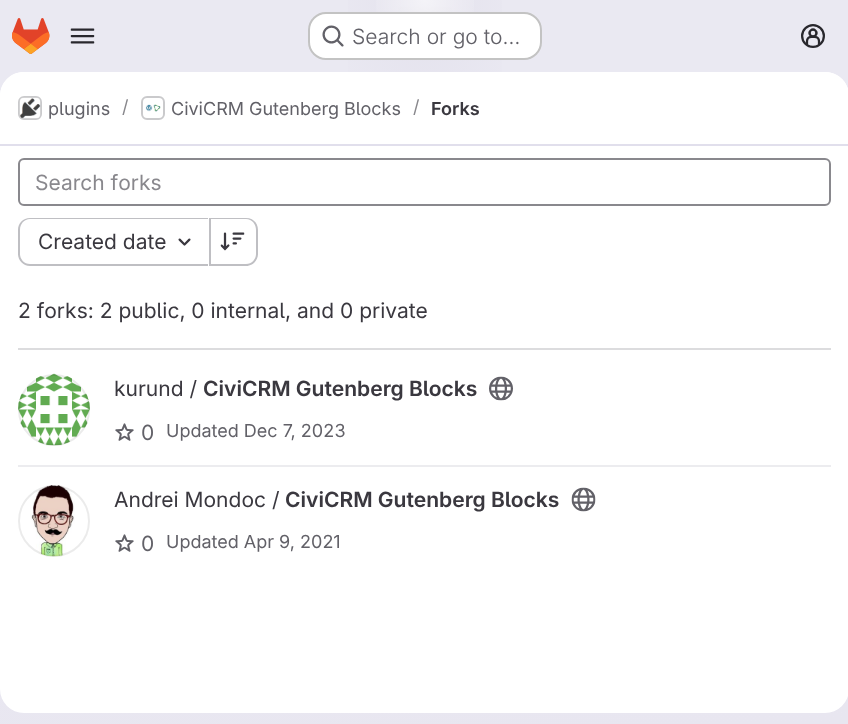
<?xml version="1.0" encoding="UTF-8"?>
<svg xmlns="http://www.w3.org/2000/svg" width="848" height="724">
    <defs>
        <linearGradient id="g1" gradientUnits="userSpaceOnUse" x1="499" y1="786" x2="350" y2="-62"><stop offset="0" stop-color="#E8E6F0"/><stop offset="0.7" stop-color="#EAE9F2"/></linearGradient>
        <radialGradient id="g2" gradientUnits="userSpaceOnUse" cx="0" cy="0" r="1" gradientTransform="matrix(425 0 0 725 425 0)"><stop offset="0" stop-color="#E4E2ED"/><stop offset="0.25" stop-color="#E4E2ED" stop-opacity="0"/></radialGradient>
        <radialGradient id="g3" gradientUnits="userSpaceOnUse" cx="0" cy="0" r="1" gradientTransform="matrix(425 0 0 725 425 0)"><stop offset="0" stop-color="#E4E2EC"/><stop offset="0.18" stop-color="#E4E2EC" stop-opacity="0"/></radialGradient>
        <radialGradient id="g4" gradientUnits="userSpaceOnUse" cx="425" cy="0" r="840"><stop offset="0" stop-color="#FFFFFF" stop-opacity="0.6"/><stop offset="0.07" stop-color="#FFFFFF" stop-opacity="0"/></radialGradient>
    </defs>
    <rect width="100%" height="100%" fill="#FFFFFF"/>
    <rect x="0" y="0" width="848" height="724" fill="url(#g1)"/>
    <rect x="348" y="0" width="154" height="72" fill="url(#g2)"/>
    <rect x="398" y="7" width="54" height="48" fill="url(#g3)"/>
    <rect x="376" y="0" width="98" height="12" fill="url(#g4)"/>
    <image x="12" y="18" width="38" height="36" href="img_01.png"/>
    <image x="70" y="28" width="25" height="16" href="img_02.png"/>
    <rect x="308" y="12" width="234" height="48" rx="18" fill="#FFFFFF"/>
    <rect x="309" y="13" width="232" height="46" rx="17" fill="none" stroke="#050506" stroke-opacity="0.24" stroke-width="2"/>
    <image x="322" y="25" width="22" height="22" href="img_03.png"/>
    <text x="352" y="44" font-family="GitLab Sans" font-size="21" font-weight="300" fill="#626168">Search or go to…</text>
    <image x="801" y="24" width="24" height="24" href="img_04.png"/>
    <rect x="0" y="72" width="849" height="641" rx="24" fill="#FFFFFF"/>
    <path d="M 24 72 H 825 C 838.5 72 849 82.5 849 96 V 146 H 0 V 96 C 0 82.5 10.5 72 24 72 Z" fill="#FFFFFF"/>
    <rect x="0" y="144" width="848" height="2" fill="#E1DFEC"/>
    <rect x="19" y="97" width="22" height="22" rx="5" fill="none" stroke="#DCDCDE" stroke-width="2"/>
    <image x="19" y="97" width="22" height="22" href="img_05.png"/>
    <rect x="19" y="97" width="22" height="22" rx="5" fill="none" stroke="#050506" stroke-opacity="0.08" stroke-width="2"/>
    <text x="48" y="115" font-family="GitLab Sans" font-size="18" fill="#626168">plugins</text>
    <text x="122" y="113" font-family="GitLab Sans" font-size="18" fill="#89888D">/</text>
    <rect x="142" y="97" width="22" height="22" rx="5" fill="none" stroke="#DCDCDE" stroke-width="2"/>
    <image x="145" y="104" width="16" height="8" href="img_06.png"/>
    <rect x="142" y="97" width="22" height="22" rx="5" fill="none" stroke="#050506" stroke-opacity="0.08" stroke-width="2"/>
    <text x="171" y="115" font-family="GitLab Sans" font-size="18" fill="#626168">CiviCRM Gutenberg Blocks</text>
    <text x="413" y="113" font-family="GitLab Sans" font-size="18" fill="#89888D">/</text>
    <text x="431" y="115" font-family="GitLab Sans" font-size="18" font-weight="600" fill="#3A383F">Forks</text>
    <rect x="18" y="348" width="813" height="2" fill="#DCDCDE"/>
    <rect x="19" y="159" width="811" height="46" rx="5" fill="none" stroke="#89888D" stroke-width="2"/>
    <text x="35" y="190" font-family="GitLab Sans" font-size="21" fill="#89888D">Search forks</text>
    <path d="M 30 218 H 208 V 266 H 30 C 23 266 18 260 18 254 V 230 C 18 223 23 218 30 218 Z M 30 219 H 208 V 264 H 30 C 24 264 20 259 20 254 V 230 C 20 224 24 219 30 219 Z" fill="#BFBFC3" fill-rule="evenodd"/>
    <text x="38" y="249" font-family="GitLab Sans" font-size="21" fill="#3A383F">Created date</text>
    <image x="178" y="238" width="13" height="8" href="img_07.png"/>
    <path d="M 210 218 H 246 C 253 218 258 223 258 230 V 254 C 258 260 253 266 246 266 H 210 Z M 210 219 H 246 C 252 219 256 224 256 230 V 254 C 256 259 252 264 246 264 H 210 Z" fill="#BFBFC3" fill-rule="evenodd"/>
    <rect x="209" y="218" width="2" height="48" fill="#BFBFC3"/>
    <image x="220" y="232" width="25" height="19" href="img_08.png"/>
    <text x="18" y="318" font-family="GitLab Sans" font-size="21" fill="#3A383F">2 forks: 2 public, 0 internal, and 0 private</text>
    <rect x="18" y="465" width="813" height="2" fill="#ECECEF"/>
    <image x="18" y="373" width="72" height="73" href="img_09.png"/>
    <circle cx="54" cy="410" r="35" fill="none" stroke="#050506" stroke-opacity="0.08" stroke-width="2"/>
    <text x="114" y="396" font-family="GitLab Sans" font-size="21" fill="#3A383F">kurund /</text>
    <text x="203" y="396" font-family="GitLab Sans" font-size="21" font-weight="600" fill="#3A383F">CiviCRM Gutenberg Blocks</text>
    <image x="489" y="376" width="24" height="25" href="img_10.png"/>
    <image x="115" y="423" width="19" height="18" href="img_11.png"/>
    <text x="141" y="440" font-family="GitLab Sans" font-size="21" fill="#626168">0</text>
    <text x="166" y="437" font-family="GitLab Sans" font-size="18" fill="#626168">Updated Dec 7, 2023</text>
    <image x="30" y="485" width="45" height="72" href="img_12.png"/>
    <circle cx="54" cy="521" r="35" fill="none" stroke="#050506" stroke-opacity="0.08" stroke-width="2"/>
    <text x="114" y="507" font-family="GitLab Sans" font-size="21" fill="#3A383F">Andrei Mondoc /</text>
    <text x="285" y="507" font-family="GitLab Sans" font-size="21" font-weight="600" fill="#3A383F">CiviCRM Gutenberg Blocks</text>
    <image x="571" y="487" width="25" height="25" href="img_13.png"/>
    <image x="115" y="534" width="19" height="18" href="img_11.png"/>
    <text x="141" y="551" font-family="GitLab Sans" font-size="21" fill="#626168">0</text>
    <text x="166" y="548" font-family="GitLab Sans" font-size="18" fill="#626168">Updated Apr 9, 2021</text>
</svg>
